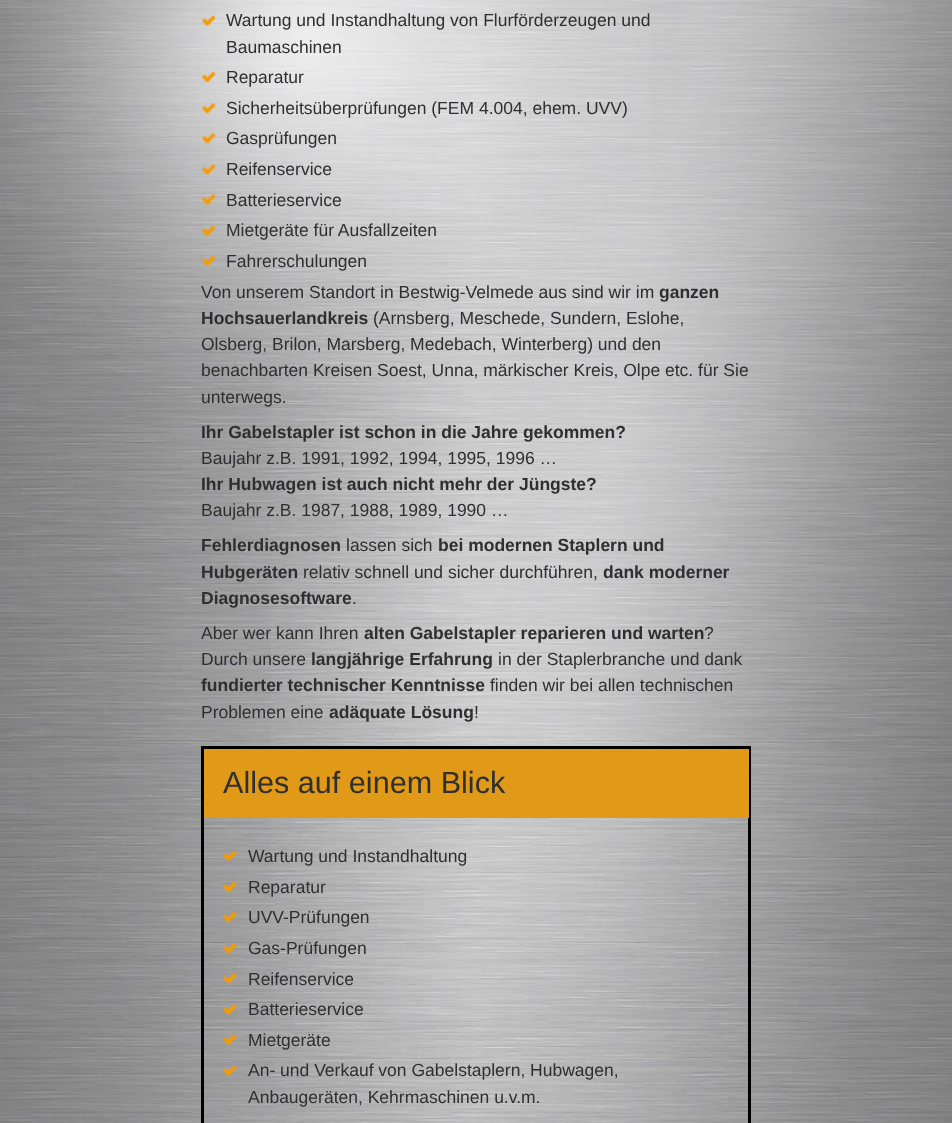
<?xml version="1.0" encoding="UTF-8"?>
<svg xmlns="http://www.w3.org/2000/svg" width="952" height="1123">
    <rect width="100%" height="100%" fill="#FFFFFF"/>
    <image x="0" y="0" width="952" height="1123" href="img_01.png"/>
    <image x="0" y="0" width="952" height="1123" href="img_02.png"/>
    <image x="0" y="0" width="651" height="388" href="img_03.png"/>
    <image x="271" y="0" width="681" height="1117" href="img_04.png"/>
    <image x="202" y="15" width="14" height="11" href="img_05.png"/>
    <text font-family="Liberation Sans" font-size="17.5" fill="#2F2F2F">
        <tspan x="226" y="26">Wartung und Instandhaltung von Flurförderzeugen und</tspan>
        <tspan x="226" y="53">Baumaschinen</tspan>
    </text>
    <image x="202" y="71" width="14" height="12" href="img_06.png"/>
    <text x="226" y="83" font-family="Liberation Sans" font-size="17.5" fill="#2F2F2F">Reparatur</text>
    <image x="202" y="103" width="14" height="11" href="img_07.png"/>
    <text x="226" y="114" font-family="Liberation Sans" font-size="17.5" fill="#2F2F2F">Sicherheitsüberprüfungen (FEM 4.004, ehem. UVV)</text>
    <image x="202" y="133" width="14" height="11" href="img_08.png"/>
    <text x="226" y="144" font-family="Liberation Sans" font-size="17.5" fill="#2F2F2F">Gasprüfungen</text>
    <image x="202" y="164" width="14" height="11" href="img_09.png"/>
    <text x="226" y="175" font-family="Liberation Sans" font-size="17.5" fill="#2F2F2F">Reifenservice</text>
    <image x="202" y="194" width="14" height="11" href="img_10.png"/>
    <text x="226" y="206" font-family="Liberation Sans" font-size="17.5" fill="#2F2F2F">Batterieservice</text>
    <image x="202" y="225" width="14" height="11" href="img_11.png"/>
    <text x="226" y="236" font-family="Liberation Sans" font-size="17.5" fill="#2F2F2F">Mietgeräte für Ausfallzeiten</text>
    <image x="202" y="255" width="14" height="11" href="img_12.png"/>
    <text x="226" y="267" font-family="Liberation Sans" font-size="17.5" fill="#2F2F2F">Fahrerschulungen</text>
    <text x="201" y="298" font-family="Liberation Sans" font-size="17.5" fill="#2F2F2F">Von unserem Standort in Bestwig-Velmede aus sind wir im</text>
    <text x="659" y="298" font-family="Liberation Sans" font-size="17.5" font-weight="700" fill="#2F2F2F">ganzen</text>
    <text x="201" y="324" font-family="Liberation Sans" font-size="17.5" font-weight="700" fill="#2F2F2F">Hochsauerlandkreis</text>
    <text x="373" y="324" font-family="Liberation Sans" font-size="17.5" fill="#2F2F2F">(Arnsberg, Meschede, Sundern, Eslohe,</text>
    <text font-family="Liberation Sans" font-size="17.5" fill="#2F2F2F">
        <tspan x="201" y="350">Olsberg, Brilon, Marsberg, Medebach, Winterberg) und den</tspan>
        <tspan x="201" y="376">benachbarten Kreisen Soest, Unna, märkischer Kreis, Olpe etc. für Sie</tspan>
        <tspan x="201" y="403">unterwegs.</tspan>
    </text>
    <text x="201" y="438" font-family="Liberation Sans" font-size="17.5" font-weight="700" fill="#2F2F2F">Ihr Gabelstapler ist schon in die Jahre gekommen?</text>
    <text x="201" y="464" font-family="Liberation Sans" font-size="17.5" fill="#2F2F2F">Baujahr z.B. 1991, 1992, 1994, 1995, 1996 …</text>
    <text x="201" y="490" font-family="Liberation Sans" font-size="17.5" font-weight="700" fill="#2F2F2F">Ihr Hubwagen ist auch nicht mehr der Jüngste?</text>
    <text x="201" y="516" font-family="Liberation Sans" font-size="17.5" fill="#2F2F2F">Baujahr z.B. 1987, 1988, 1989, 1990 …</text>
    <text x="201" y="551" font-family="Liberation Sans" font-size="17.5" font-weight="700" fill="#2F2F2F">Fehlerdiagnosen</text>
    <text x="346" y="551" font-family="Liberation Sans" font-size="17.5" fill="#2F2F2F">lassen sich</text>
    <text x="438" y="551" font-family="Liberation Sans" font-size="17.5" font-weight="700" fill="#2F2F2F">bei modernen Staplern und</text>
    <text x="201" y="578" font-family="Liberation Sans" font-size="17.5" font-weight="700" fill="#2F2F2F">Hubgeräten</text>
    <text x="303" y="578" font-family="Liberation Sans" font-size="17.5" fill="#2F2F2F">relativ schnell und sicher durchführen,</text>
    <text x="603" y="578" font-family="Liberation Sans" font-size="17.5" font-weight="700" fill="#2F2F2F">dank moderner</text>
    <text x="201" y="604" font-family="Liberation Sans" font-size="17.5" font-weight="700" fill="#2F2F2F">Diagnosesoftware</text>
    <text x="352" y="604" font-family="Liberation Sans" font-size="17.5" fill="#2F2F2F">.</text>
    <text x="201" y="639" font-family="Liberation Sans" font-size="17.5" fill="#2F2F2F">Aber wer kann Ihren</text>
    <text x="364" y="639" font-family="Liberation Sans" font-size="17.5" font-weight="700" fill="#2F2F2F">alten Gabelstapler reparieren und warten</text>
    <text x="704" y="639" font-family="Liberation Sans" font-size="17.5" fill="#2F2F2F">?</text>
    <text x="201" y="665" font-family="Liberation Sans" font-size="17.5" fill="#2F2F2F">Durch unsere</text>
    <text x="311" y="665" font-family="Liberation Sans" font-size="17.5" font-weight="700" fill="#2F2F2F">langjährige Erfahrung</text>
    <text x="498" y="665" font-family="Liberation Sans" font-size="17.5" fill="#2F2F2F">in der Staplerbranche und dank</text>
    <text x="201" y="691" font-family="Liberation Sans" font-size="17.5" font-weight="700" fill="#2F2F2F">fundierter technischer Kenntnisse</text>
    <text x="490" y="691" font-family="Liberation Sans" font-size="17.5" fill="#2F2F2F">finden wir bei allen technischen</text>
    <text x="201" y="718" font-family="Liberation Sans" font-size="17.5" fill="#2F2F2F">Problemen eine</text>
    <text x="329" y="718" font-family="Liberation Sans" font-size="17.5" font-weight="700" fill="#2F2F2F">adäquate Lösung</text>
    <text x="474" y="718" font-family="Liberation Sans" font-size="17.5" fill="#2F2F2F">!</text>
    <rect x="202.5" y="747.5" width="547" height="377" fill="none" stroke="#000000" stroke-width="3"/>
    <rect x="204" y="749" width="545" height="69" fill="#E09A17"/>
    <text x="223" y="793" font-family="Liberation Sans" font-size="30.6" fill="#2F2F2F">Alles auf einem Blick</text>
    <image x="223" y="850" width="14" height="11" href="img_13.png"/>
    <text x="248" y="862" font-family="Liberation Sans" font-size="17.5" fill="#2F2F2F">Wartung und Instandhaltung</text>
    <image x="223" y="881" width="14" height="12" href="img_14.png"/>
    <text x="248" y="893" font-family="Liberation Sans" font-size="17.5" fill="#2F2F2F">Reparatur</text>
    <image x="223" y="911" width="14" height="12" href="img_15.png"/>
    <text x="248" y="923" font-family="Liberation Sans" font-size="17.5" fill="#2F2F2F">UVV-Prüfungen</text>
    <image x="223" y="943" width="14" height="11" href="img_16.png"/>
    <text x="248" y="954" font-family="Liberation Sans" font-size="17.5" fill="#2F2F2F">Gas-Prüfungen</text>
    <image x="223" y="973" width="14" height="11" href="img_17.png"/>
    <text x="248" y="985" font-family="Liberation Sans" font-size="17.5" fill="#2F2F2F">Reifenservice</text>
    <image x="223" y="1004" width="14" height="11" href="img_18.png"/>
    <text x="248" y="1015" font-family="Liberation Sans" font-size="17.5" fill="#2F2F2F">Batterieservice</text>
    <image x="223" y="1034" width="14" height="11" href="img_19.png"/>
    <text x="248" y="1046" font-family="Liberation Sans" font-size="17.5" fill="#2F2F2F">Mietgeräte</text>
    <image x="223" y="1065" width="14" height="11" href="img_20.png"/>
    <text font-family="Liberation Sans" font-size="17.5" fill="#2F2F2F">
        <tspan x="248" y="1076">An- und Verkauf von Gabelstaplern, Hubwagen,</tspan>
        <tspan x="248" y="1103">Anbaugeräten, Kehrmaschinen u.v.m.</tspan>
    </text>
</svg>
